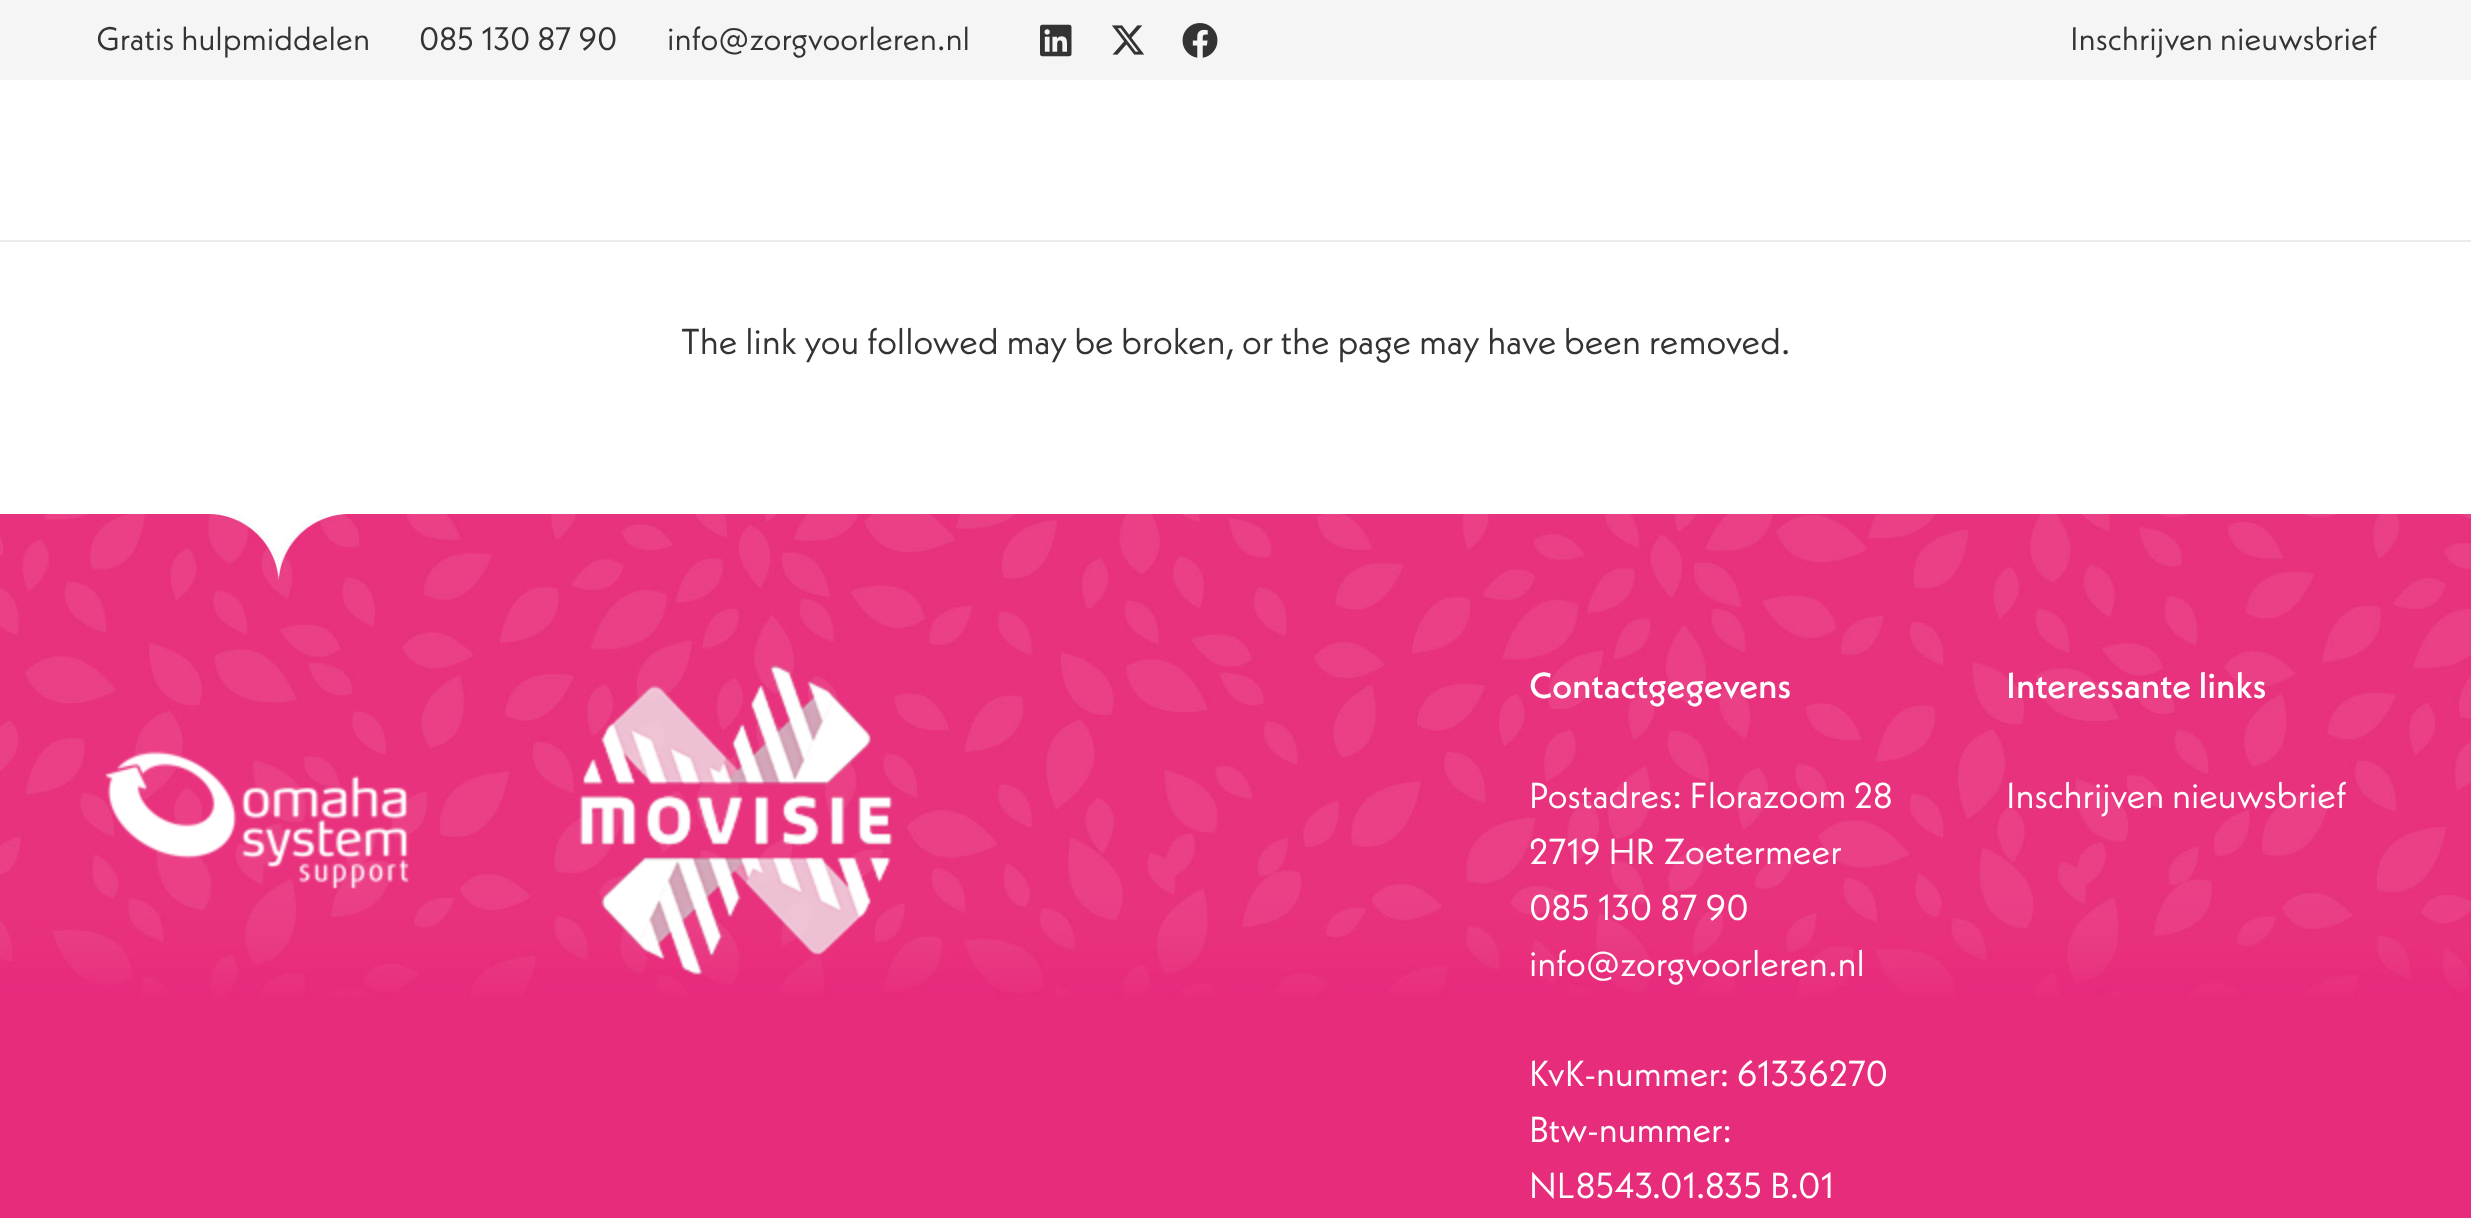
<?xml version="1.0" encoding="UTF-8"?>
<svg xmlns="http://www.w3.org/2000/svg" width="2471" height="1218">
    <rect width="100%" height="100%" fill="#FFFFFF"/>
    <rect x="0" y="0" width="2471" height="80" fill="#F5F5F5"/>
    <text x="96" y="50" font-family="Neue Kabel" font-size="32.5" fill="#333333">Gratis hulpmiddelen</text>
    <text x="419" y="50" font-family="Neue Kabel" font-size="32.5" fill="#333333">085 130 87 90</text>
    <text x="667" y="50" font-family="Neue Kabel" font-size="32.5" fill="#333333">info@zorgvoorleren.nl</text>
    <image x="1040" y="24" width="32" height="33" href="img_01.png"/>
    <image x="1112" y="25" width="33" height="30" href="img_02.png"/>
    <image x="1182" y="23" width="36" height="35" href="img_03.png"/>
    <text x="2070" y="50" font-family="Neue Kabel" font-size="32.5" fill="#333333">Inschrijven nieuwsbrief</text>
    <rect x="0" y="240" width="2471" height="2" fill="#000000" fill-opacity="0.08"/>
    <text x="681" y="354" font-family="Neue Kabel" font-size="36" fill="#333333">The link you followed may be broken, or the page may have been removed.</text>
    <rect x="0" y="997" width="2471" height="221" fill="#E72C7B"/>
    <image x="0" y="514" width="2471" height="483" href="img_04.png"/>
    <image x="105" y="751" width="304" height="138" href="img_05.png"/>
    <image x="579" y="665" width="314" height="310" href="img_06.png"/>
    <text x="1529" y="698" font-family="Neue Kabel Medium" font-size="36" font-weight="500" fill="#FFFFFF">Contactgegevens</text>
    <text font-family="Neue Kabel" font-size="36" fill="#FFFFFF">
        <tspan x="1529" y="808">Postadres: Florazoom 28</tspan>
        <tspan x="1529" y="864">2719 HR Zoetermeer</tspan>
        <tspan x="1529" y="920">085 130 87 90</tspan>
        <tspan x="1529" y="976">info@zorgvoorleren.nl</tspan>
    </text>
    <text font-family="Neue Kabel" font-size="36" fill="#FFFFFF">
        <tspan x="1529" y="1086">KvK-nummer: 61336270</tspan>
        <tspan x="1529" y="1142">Btw-nummer:</tspan>
        <tspan x="1529" y="1198">NL8543.01.835 B.01</tspan>
    </text>
    <text x="2006" y="698" font-family="Neue Kabel Medium" font-size="36" font-weight="500" fill="#FFFFFF">Interessante links</text>
    <text x="2006" y="808" font-family="Neue Kabel" font-size="36" fill="#FFFFFF">Inschrijven nieuwsbrief</text>
</svg>
